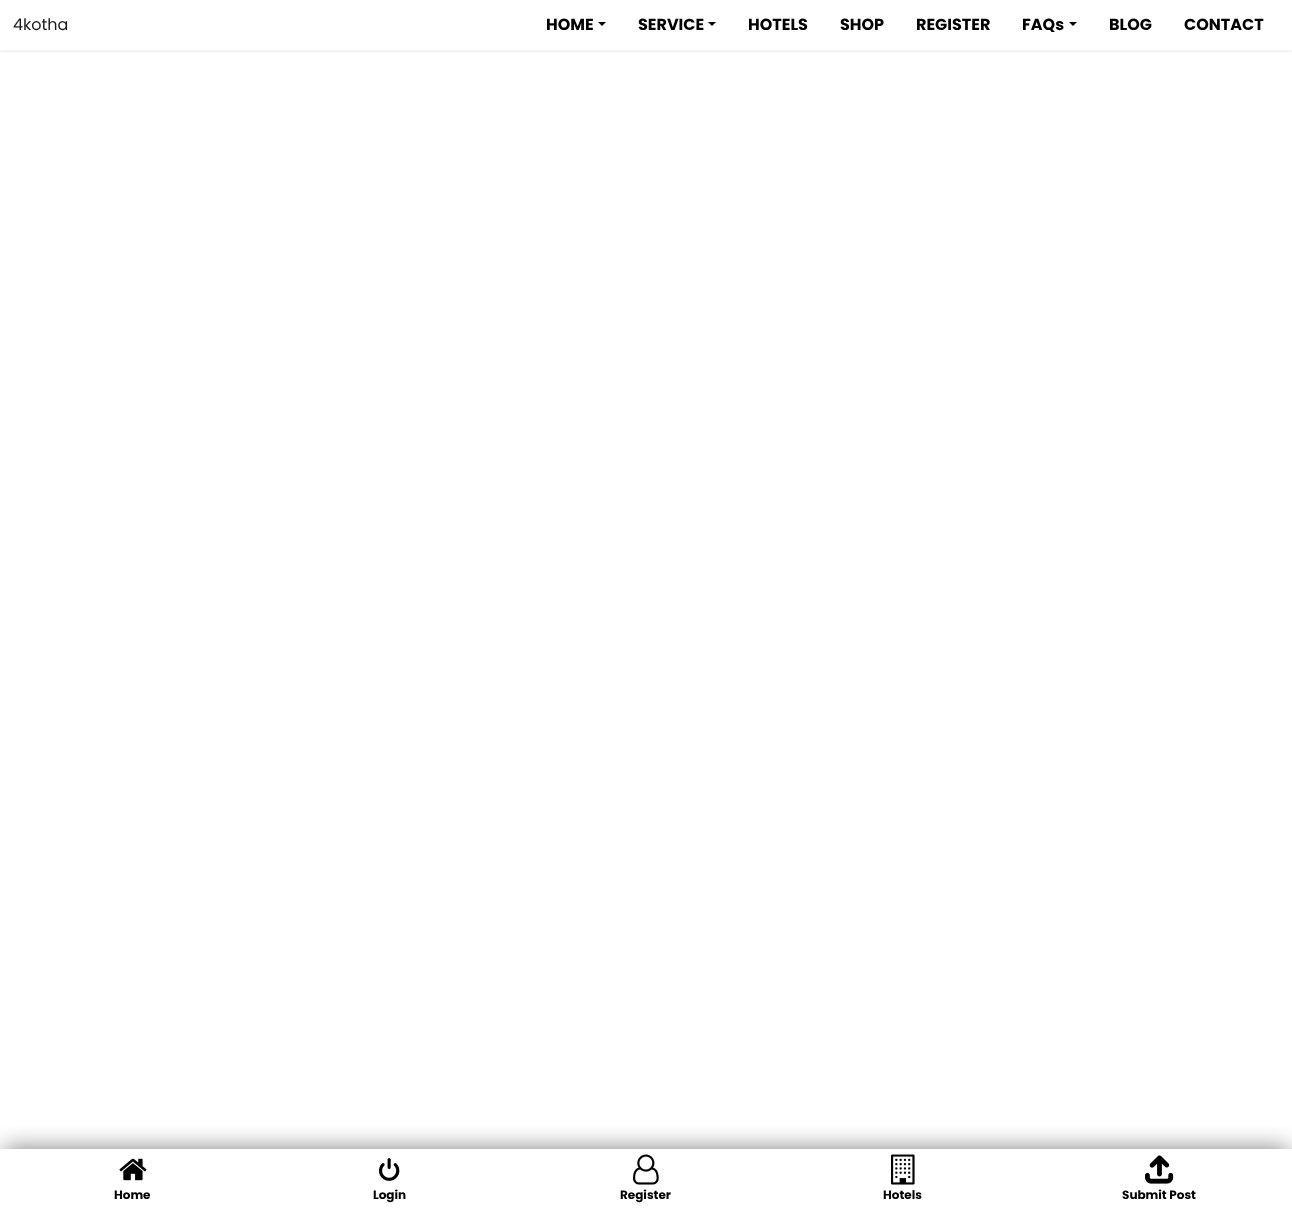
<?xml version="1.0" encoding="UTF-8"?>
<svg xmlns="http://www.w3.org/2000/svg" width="1292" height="1213">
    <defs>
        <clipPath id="clip1"><rect x="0" y="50" width="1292" height="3"/></clipPath>
        <filter id="blur1" x="-50%" y="-200%" width="200%" height="500%"><feGaussianBlur stdDeviation="2"/></filter>
        <clipPath id="clip2"><rect x="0" y="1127" width="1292" height="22"/></clipPath>
        <filter id="blur2" x="-50%" y="-200%" width="200%" height="500%"><feGaussianBlur stdDeviation="12.5"/></filter>
    </defs>
    <rect width="100%" height="100%" fill="#FFFFFF"/>
    <g clip-path="url(#clip1)">
        <rect x="0" y="2" width="1292" height="50" fill="#000000" fill-opacity="0.07" filter="url(#blur1)"/>
    </g>
    <text x="13" y="30" font-family="Poppins" font-size="16" fill="#1A1A1A">4kotha</text>
    <text x="546" y="30" font-family="Poppins" font-size="16" font-weight="700" fill="#000000">HOME</text>
    <path d="M 598 22 H 606 L 602 26 Z" fill="#000000"/>
    <text x="638" y="30" font-family="Poppins" font-size="16" font-weight="700" fill="#000000">SERVICE</text>
    <path d="M 708 22 H 716 L 712 26 Z" fill="#000000"/>
    <text x="748" y="30" font-family="Poppins" font-size="16" font-weight="700" fill="#000000">HOTELS</text>
    <text x="840" y="30" font-family="Poppins" font-size="16" font-weight="700" fill="#000000">SHOP</text>
    <text x="916" y="30" font-family="Poppins" font-size="16" font-weight="700" fill="#000000">REGISTER</text>
    <text x="1022" y="30" font-family="Poppins" font-size="16" font-weight="700" fill="#000000">FAQs</text>
    <path d="M 1069 22 H 1077 L 1073 26 Z" fill="#000000"/>
    <text x="1109" y="30" font-family="Poppins" font-size="16" font-weight="700" fill="#000000">BLOG</text>
    <text x="1184" y="30" font-family="Poppins" font-size="16" font-weight="700" fill="#000000">CONTACT</text>
    <g clip-path="url(#clip2)">
        <rect x="4" y="1149" width="1284" height="56" fill="#000000" fill-opacity="0.52" filter="url(#blur2)"/>
    </g>
    <image x="119" y="1158" width="28" height="23" href="img_01.png"/>
    <text x="114" y="1199" font-family="Poppins" font-size="12" font-weight="700" fill="#000000">Home</text>
    <image x="379" y="1158" width="21" height="23" href="img_02.png"/>
    <text x="373" y="1199" font-family="Poppins" font-size="12" font-weight="700" fill="#000000">Login</text>
    <image x="633" y="1154" width="26" height="31" href="img_03.png"/>
    <text x="620" y="1199" font-family="Poppins" font-size="12" font-weight="700" fill="#000000">Register</text>
    <image x="891" y="1154" width="24" height="31" href="img_04.png"/>
    <text x="883" y="1199" font-family="Poppins" font-size="12" font-weight="700" fill="#000000">Hotels</text>
    <image x="1145" y="1155" width="29" height="29" href="img_05.png"/>
    <text x="1122" y="1199" font-family="Poppins" font-size="12" font-weight="700" fill="#000000">Submit Post</text>
</svg>
